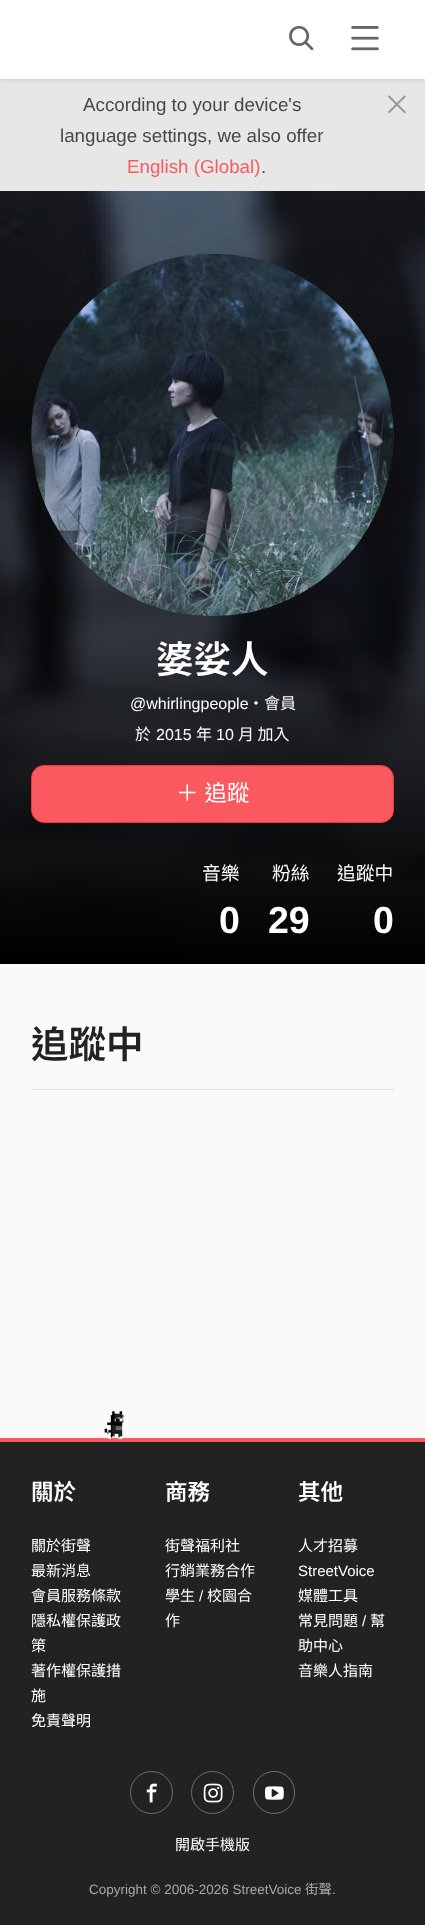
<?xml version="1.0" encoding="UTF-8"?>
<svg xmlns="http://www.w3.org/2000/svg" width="425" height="1925">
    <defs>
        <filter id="blur1" x="-50%" y="-200%" width="200%" height="500%"><feGaussianBlur stdDeviation="2.5"/></filter>
        <linearGradient id="g1" gradientUnits="userSpaceOnUse" x1="212" y1="113" x2="213" y2="964"><stop offset="0" stop-color="#000000" stop-opacity="0"/><stop offset="1" stop-color="#000000"/></linearGradient>
    </defs>
    <rect width="100%" height="100%" fill="#FAFAFA"/>
    <rect x="0" y="79" width="425" height="112" fill="#E7E7E7"/>
    <text x="83" y="111" font-family="Liberation Sans" font-size="18.75" fill="#474747">According to your device's</text>
    <text x="60" y="142" font-family="Liberation Sans" font-size="18.75" fill="#474747">language settings, we also offer</text>
    <text x="127" y="173" font-family="Liberation Sans" font-size="18.75" fill="#F9595F">English (Global)</text>
    <text x="261" y="173" font-family="Liberation Sans" font-size="18.75" fill="#474747">.</text>
    <image x="388" y="95" width="18" height="18" href="img_01.png"/>
    <rect x="0" y="1" width="425" height="79" fill="#000000" fill-opacity="0.1" filter="url(#blur1)"/>
    <rect x="0" y="0" width="425" height="79" fill="#FFFFFF"/>
    <image x="289" y="26" width="25" height="25" href="img_02.png"/>
    <image x="351" y="26" width="28" height="25" href="img_03.png"/>
    <image x="0" y="191" width="425" height="768" href="img_04.png"/>
    <rect x="0" y="191" width="425" height="773" fill="url(#g1)"/>
    <image x="31" y="254" width="363" height="362" href="img_05.png"/>
    <text x="156" y="673" font-family="Noto Sans TC" font-size="37.5" font-weight="600" fill="#FFFFFF">婆娑人</text>
    <text x="130" y="709" font-family="Liberation Sans" font-size="16" fill="#FFFFFF">@whirlingpeople</text>
    <text x="248" y="709" font-family="Noto Sans TC" font-size="16" fill="#FFFFFF">・會員</text>
    <text x="135" y="740" font-family="Noto Sans TC" font-size="16" fill="#FFFFFF">於</text>
    <text x="156" y="740" font-family="Liberation Sans" font-size="16" fill="#FFFFFF">2015</text>
    <text x="196" y="740" font-family="Noto Sans TC" font-size="16" fill="#FFFFFF">年</text>
    <text x="216" y="740" font-family="Liberation Sans" font-size="16" fill="#FFFFFF">10</text>
    <text x="238" y="740" font-family="Noto Sans TC" font-size="16" fill="#FFFFFF">月 加入</text>
    <rect x="31.5" y="765.5" width="362" height="57" rx="12.5" fill="#F9595F" stroke="#F8343B"/>
    <text x="176" y="801" word-spacing="1" font-family="Noto Sans TC" font-size="22.5" fill="#FFFFFF">＋ 追蹤</text>
    <text x="202" y="880" font-family="Noto Sans TC" font-size="18.75" fill="#FFFFFF">音樂</text>
    <text x="219" y="933" font-family="Liberation Sans" font-size="37.5" font-weight="700" fill="#FFFFFF">0</text>
    <text x="272" y="880" font-family="Noto Sans TC" font-size="18.75" fill="#FFFFFF">粉絲</text>
    <text x="268" y="933" font-family="Liberation Sans" font-size="37.5" font-weight="700" fill="#FFFFFF">29</text>
    <text x="337" y="880" font-family="Noto Sans TC" font-size="18.75" fill="#FFFFFF">追蹤中</text>
    <text x="373" y="933" font-family="Liberation Sans" font-size="37.5" font-weight="700" fill="#FFFFFF">0</text>
    <text x="31" y="1058" font-family="Noto Sans TC" font-size="37.5" font-weight="600" fill="#222222">追蹤中</text>
    <rect x="31" y="1089" width="363" height="1" fill="#E1E1E1"/>
    <rect x="0" y="1442" width="425" height="483" fill="#222222"/>
    <rect x="0" y="1438" width="425" height="4" fill="#F9595F"/>
    <image x="104" y="1411" width="22" height="28" href="img_06.png"/>
    <text x="31" y="1500" font-family="Noto Sans TC" font-size="22.5" font-weight="600" fill="#FFFFFF">關於</text>
    <text font-family="Noto Sans TC" font-size="15" fill="#FFFFFF">
        <tspan x="31" y="1551">關於街聲</tspan>
        <tspan x="31" y="1576">最新消息</tspan>
        <tspan x="31" y="1601">會員服務條款</tspan>
        <tspan x="31" y="1626">隱私權保護政</tspan>
        <tspan x="31" y="1651">策</tspan>
        <tspan x="31" y="1676">著作權保護措</tspan>
        <tspan x="31" y="1701">施</tspan>
        <tspan x="31" y="1726">免責聲明</tspan>
    </text>
    <text x="165" y="1500" font-family="Noto Sans TC" font-size="22.5" font-weight="600" fill="#FFFFFF">商務</text>
    <text font-family="Noto Sans TC" font-size="15" fill="#FFFFFF">
        <tspan x="165" y="1551">街聲福利社</tspan>
        <tspan x="165" y="1576">行銷業務合作</tspan>
        <tspan x="165" y="1601">學生</tspan>
    </text>
    <text x="199" y="1601" font-family="Liberation Sans" font-size="15" fill="#FFFFFF">/</text>
    <text x="207" y="1601" font-family="Noto Sans TC" font-size="15" fill="#FFFFFF">校園合</text>
    <text x="165" y="1626" font-family="Noto Sans TC" font-size="15" fill="#FFFFFF">作</text>
    <text x="298" y="1500" font-family="Noto Sans TC" font-size="22.5" font-weight="600" fill="#FFFFFF">其他</text>
    <text x="298" y="1551" font-family="Noto Sans TC" font-size="15" fill="#FFFFFF">人才招募</text>
    <text x="298" y="1576" font-family="Liberation Sans" font-size="15" fill="#FFFFFF">StreetVoice</text>
    <text font-family="Noto Sans TC" font-size="15" fill="#FFFFFF">
        <tspan x="298" y="1601">媒體工具</tspan>
        <tspan x="298" y="1626">常見問題</tspan>
    </text>
    <text x="362" y="1626" font-family="Liberation Sans" font-size="15" fill="#FFFFFF">/</text>
    <text x="370" y="1626" font-family="Noto Sans TC" font-size="15" fill="#FFFFFF">幫</text>
    <text font-family="Noto Sans TC" font-size="15" fill="#FFFFFF">
        <tspan x="298" y="1651">助中心</tspan>
        <tspan x="298" y="1676">音樂人指南</tspan>
    </text>
    <circle cx="151.5" cy="1792.5" r="21" fill="none" stroke="#6F6F6F"/>
    <image x="146" y="1783" width="11" height="20" href="img_07.png"/>
    <circle cx="212.5" cy="1792.5" r="21" fill="none" stroke="#6F6F6F"/>
    <image x="203" y="1783" width="20" height="20" href="img_08.png"/>
    <rect x="253.5" y="1771.5" width="41" height="42" rx="20.5" fill="none" stroke="#6F6F6F"/>
    <image x="265" y="1786" width="19" height="14" href="img_09.png"/>
    <text x="175" y="1850" font-family="Noto Sans TC" font-size="15" fill="#FFFFFF">開啟手機版</text>
    <text x="89" y="1894" font-family="Liberation Sans" font-size="13.5" fill="#A8A8A8">Copyright © 2006-2026 StreetVoice</text>
    <text x="305" y="1894" font-family="Noto Sans TC" font-size="13.5" fill="#A8A8A8">街聲</text>
    <text x="332" y="1894" font-family="Liberation Sans" font-size="13.5" fill="#A8A8A8">.</text>
</svg>
